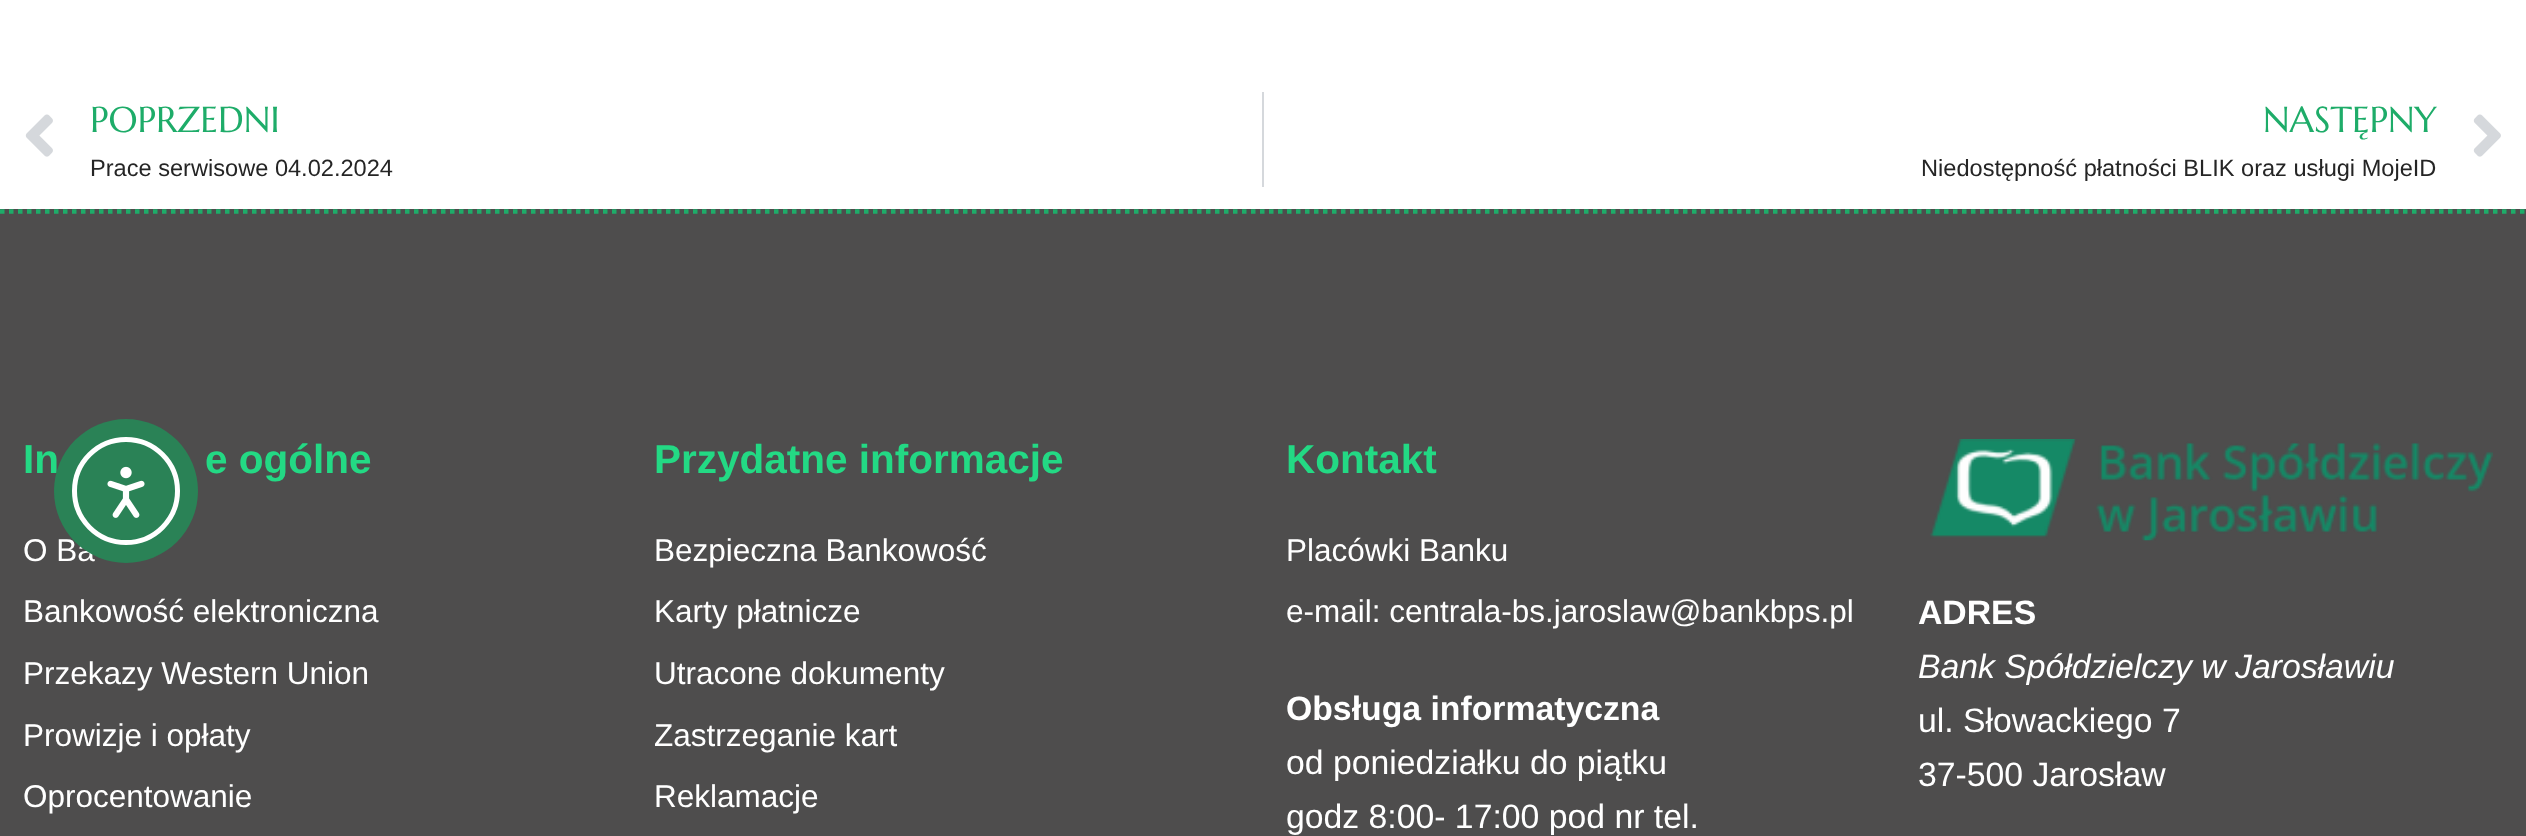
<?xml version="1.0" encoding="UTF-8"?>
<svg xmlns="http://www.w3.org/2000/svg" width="2526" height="836">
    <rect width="100%" height="100%" fill="#FFFFFF"/>
    <image x="25" y="114" width="28" height="43" href="img_01.png"/>
    <text x="90" y="132" font-family="Marcellus" font-size="36" fill="#1EAC69">POPRZEDNI</text>
    <text x="90" y="176" font-family="Liberation Sans" font-size="23.6" fill="#252525">Prace serwisowe 04.02.2024</text>
    <rect x="1262" y="92" width="2" height="95" fill="#D5D8DC"/>
    <text x="2263" y="132" font-family="Marcellus" font-size="36" fill="#1EAC69">NASTĘPNY</text>
    <text x="1921" y="176" font-family="Liberation Sans" font-size="23.6" fill="#252525">Niedostępność płatności BLIK oraz usługi MojeID</text>
    <image x="2473" y="114" width="28" height="43" href="img_02.png"/>
    <rect x="0" y="209" width="2526" height="627" fill="#4E4D4D"/>
    <text x="23" y="473" font-family="Liberation Sans" font-size="40.5" font-weight="700" fill="#23D984">In</text>
    <text x="23" y="561" font-family="Liberation Sans" font-size="31.5" fill="#FFFFFF">O Ba</text>
    <circle cx="126" cy="491" r="72" fill="#2A8256"/>
    <circle cx="126" cy="491" r="51.5" fill="none" stroke="#FFFFFF" stroke-width="5"/>
    <image x="107" y="466" width="38" height="52" href="img_03.png"/>
    <path d="M 0 211.5 H 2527" fill="none" stroke="#1EAC69" stroke-width="4.5" stroke-dasharray="4.5 4.5"/>
    <text x="205" y="473" font-family="Liberation Sans" font-size="40.5" font-weight="700" fill="#23D984">e ogólne</text>
    <text font-family="Liberation Sans" font-size="31.5" fill="#FFFFFF">
        <tspan x="23" y="622">Bankowość elektroniczna</tspan>
        <tspan x="23" y="684">Przekazy Western Union</tspan>
        <tspan x="23" y="746">Prowizje i opłaty</tspan>
        <tspan x="23" y="807">Oprocentowanie</tspan>
    </text>
    <text x="654" y="473" font-family="Liberation Sans" font-size="40.5" font-weight="700" fill="#23D984">Przydatne informacje</text>
    <text font-family="Liberation Sans" font-size="31.5" fill="#FFFFFF">
        <tspan x="654" y="561">Bezpieczna Bankowość</tspan>
        <tspan x="654" y="622">Karty płatnicze</tspan>
        <tspan x="654" y="684">Utracone dokumenty</tspan>
        <tspan x="654" y="746">Zastrzeganie kart</tspan>
        <tspan x="654" y="807">Reklamacje</tspan>
    </text>
    <text x="1286" y="473" font-family="Liberation Sans" font-size="40.5" font-weight="700" fill="#23D984">Kontakt</text>
    <text font-family="Liberation Sans" font-size="31.5" fill="#FFFFFF">
        <tspan x="1286" y="561">Placówki Banku</tspan>
        <tspan x="1286" y="622">e-mail: centrala-bs.jaroslaw@bankbps.pl</tspan>
    </text>
    <text x="1286" y="720" font-family="Liberation Sans" font-size="33.75" font-weight="700" fill="#FFFFFF">Obsługa informatyczna</text>
    <text font-family="Liberation Sans" font-size="33.75" fill="#FFFFFF">
        <tspan x="1286" y="774">od poniedziałku do piątku</tspan>
        <tspan x="1286" y="828">godz 8:00- 17:00 pod nr tel.</tspan>
    </text>
    <image x="1930" y="439" width="563" height="102" href="img_04.png"/>
    <text x="1918" y="624" font-family="Liberation Sans" font-size="33.75" font-weight="700" fill="#FFFFFF">ADRES</text>
    <text x="1918" y="678" font-family="Liberation Sans" font-size="33.75" font-style="italic" fill="#FFFFFF">Bank Spółdzielczy w Jarosławiu</text>
    <text font-family="Liberation Sans" font-size="33.75" fill="#FFFFFF">
        <tspan x="1918" y="732">ul. Słowackiego 7</tspan>
        <tspan x="1918" y="786">37-500 Jarosław</tspan>
    </text>
</svg>
